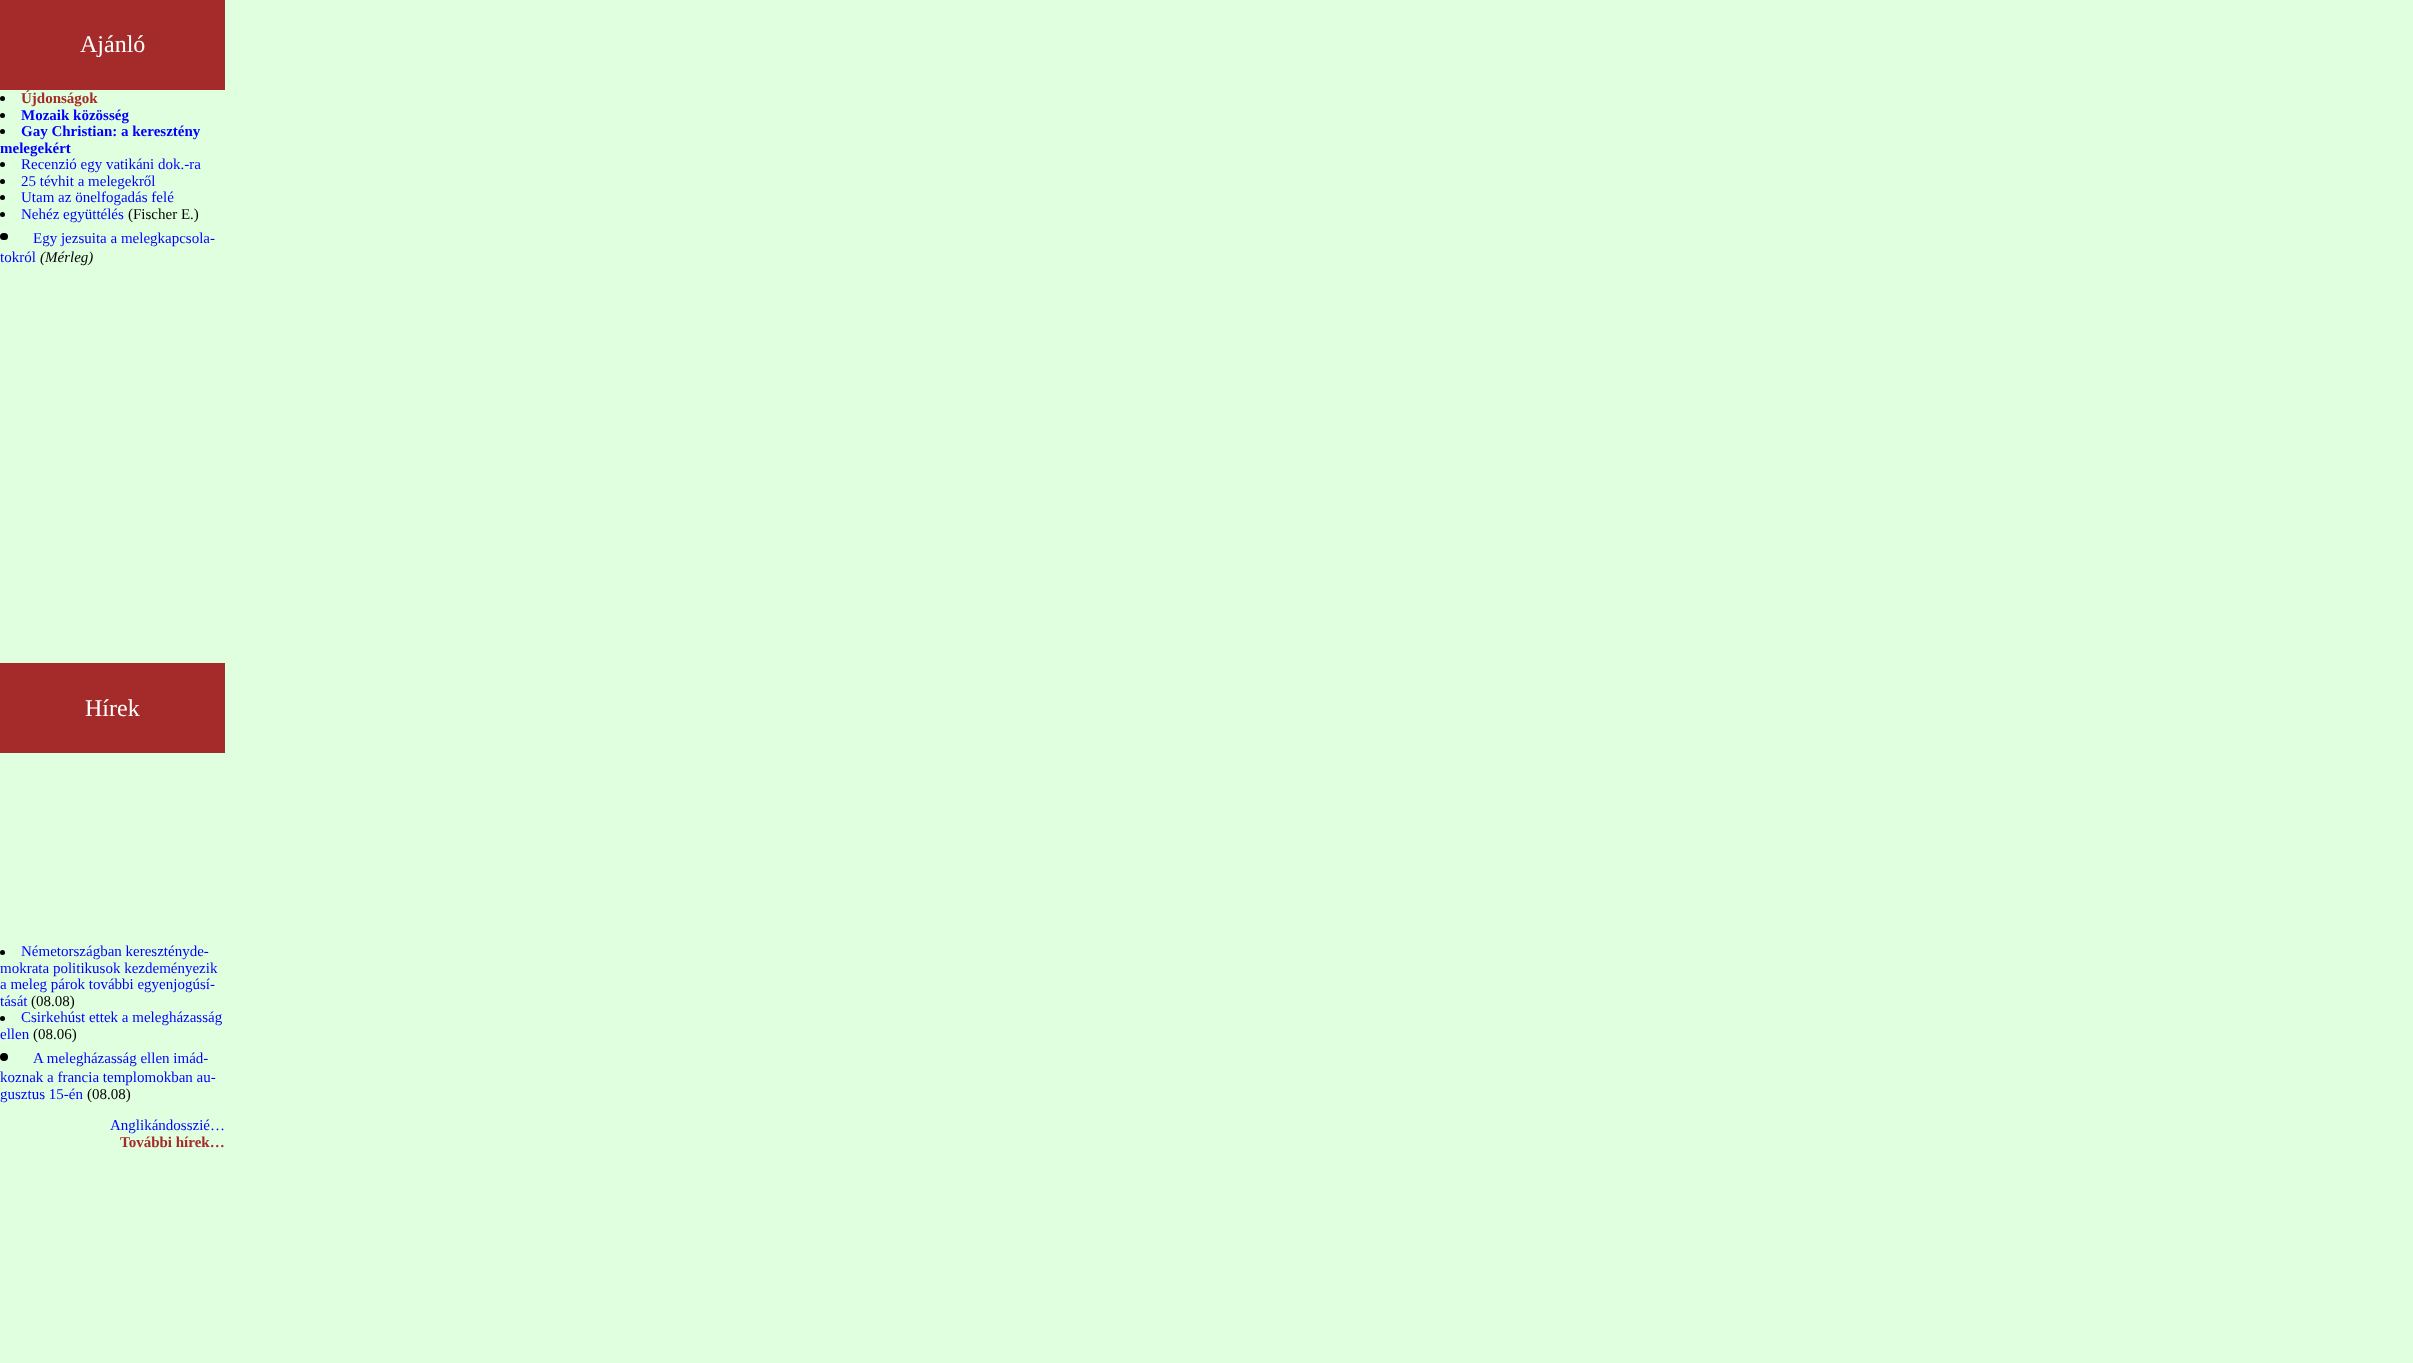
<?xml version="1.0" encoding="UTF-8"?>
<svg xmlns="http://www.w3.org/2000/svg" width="2413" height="1363">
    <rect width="100%" height="100%" fill="#E0FFDF"/>
    <rect x="0" y="0" width="225" height="90" fill="#A52A2A"/>
    <text x="80" y="52" font-family="Liberation Serif" font-size="24" fill="#FFFFFF">Ajánló</text>
    <circle cx="2.5" cy="98.5" r="2.5" fill="#000000"/>
    <text x="21" y="103" font-family="Liberation Serif" font-size="15" font-weight="700" fill="#A52A2A">Újdonságok</text>
    <circle cx="2.5" cy="115.5" r="2.5" fill="#000000"/>
    <text x="21" y="120" font-family="Liberation Serif" font-size="15" font-weight="700" fill="#0000FF">Mozaik közösség</text>
    <circle cx="2.5" cy="131.5" r="2.5" fill="#000000"/>
    <text x="21" y="136" font-family="Liberation Serif" font-size="15" font-weight="700" fill="#0000FF">Gay Christian: a keresztény</text>
    <text x="0" y="153" font-family="Liberation Serif" font-size="15" font-weight="700" fill="#0000FF">melegekért</text>
    <circle cx="2.5" cy="164.5" r="2.5" fill="#000000"/>
    <text x="21" y="169" font-family="Liberation Serif" font-size="15" fill="#0000FF">Recenzió egy vatikáni dok.-ra</text>
    <circle cx="2.5" cy="181.5" r="2.5" fill="#000000"/>
    <text x="21" y="186" font-family="Liberation Serif" font-size="15" fill="#0000FF">25 tévhit a melegekről</text>
    <circle cx="2.5" cy="197.5" r="2.5" fill="#000000"/>
    <text x="21" y="202" font-family="Liberation Serif" font-size="15" fill="#0000FF">Utam az önelfogadás felé</text>
    <circle cx="2.5" cy="214.5" r="2.5" fill="#000000"/>
    <text x="21" y="219" font-family="Liberation Serif" font-size="15" fill="#0000FF">Nehéz együttélés</text>
    <text x="128" y="219" font-family="Liberation Serif" font-size="15" fill="#000000">(Fischer E.)</text>
    <rect x="0" y="233" width="8" height="7" rx="3.5" fill="#000000"/>
    <text x="33" y="243" font-family="Liberation Serif" font-size="15" fill="#0000FF">Egy jezsuita a melegkapcsola-</text>
    <text x="0" y="262" font-family="Liberation Serif" font-size="15" fill="#0000FF">tokról</text>
    <text x="40" y="262" font-family="Liberation Serif" font-size="15" font-style="italic" fill="#000000">(Mérleg)</text>
    <rect x="0" y="663" width="225" height="90" fill="#A52A2A"/>
    <text x="85" y="716" font-family="Liberation Serif" font-size="24" fill="#FFFFFF">Hírek</text>
    <circle cx="2.5" cy="952.5" r="2.5" fill="#000000"/>
    <text x="21" y="956" font-family="Liberation Serif" font-size="15" fill="#0000FF">Németországban keresztényde-</text>
    <text font-family="Liberation Serif" font-size="15" fill="#0000FF">
        <tspan x="0" y="973">mokrata politikusok kezdeményezik</tspan>
        <tspan x="0" y="989">a meleg párok további egyenjogúsí-</tspan>
        <tspan x="0" y="1006">tását</tspan>
    </text>
    <text x="31" y="1006" font-family="Liberation Serif" font-size="15" fill="#000000">(08.08)</text>
    <circle cx="2.5" cy="1018.5" r="2.5" fill="#000000"/>
    <text x="21" y="1022" font-family="Liberation Serif" font-size="15" fill="#0000FF">Csirkehúst ettek a melegházasság</text>
    <text x="0" y="1039" font-family="Liberation Serif" font-size="15" fill="#0000FF">ellen</text>
    <text x="33" y="1039" font-family="Liberation Serif" font-size="15" fill="#000000">(08.06)</text>
    <text x="33" y="1063" font-family="Liberation Serif" font-size="15" fill="#0000FF">A melegházasság ellen imád-</text>
    <text font-family="Liberation Serif" font-size="15" fill="#0000FF">
        <tspan x="0" y="1082">koznak a francia templomokban au-</tspan>
        <tspan x="0" y="1099">gusztus 15-én</tspan>
    </text>
    <text x="87" y="1099" font-family="Liberation Serif" font-size="15" fill="#000000">(08.08)</text>
    <text x="110" y="1130" font-family="Liberation Serif" font-size="15" fill="#0000FF">Anglikándosszié…</text>
    <text x="120" y="1147" font-family="Liberation Serif" font-size="15" font-weight="700" fill="#A52A2A">További hírek…</text>
    <circle cx="4" cy="1057" r="4" fill="#000000"/>
</svg>
